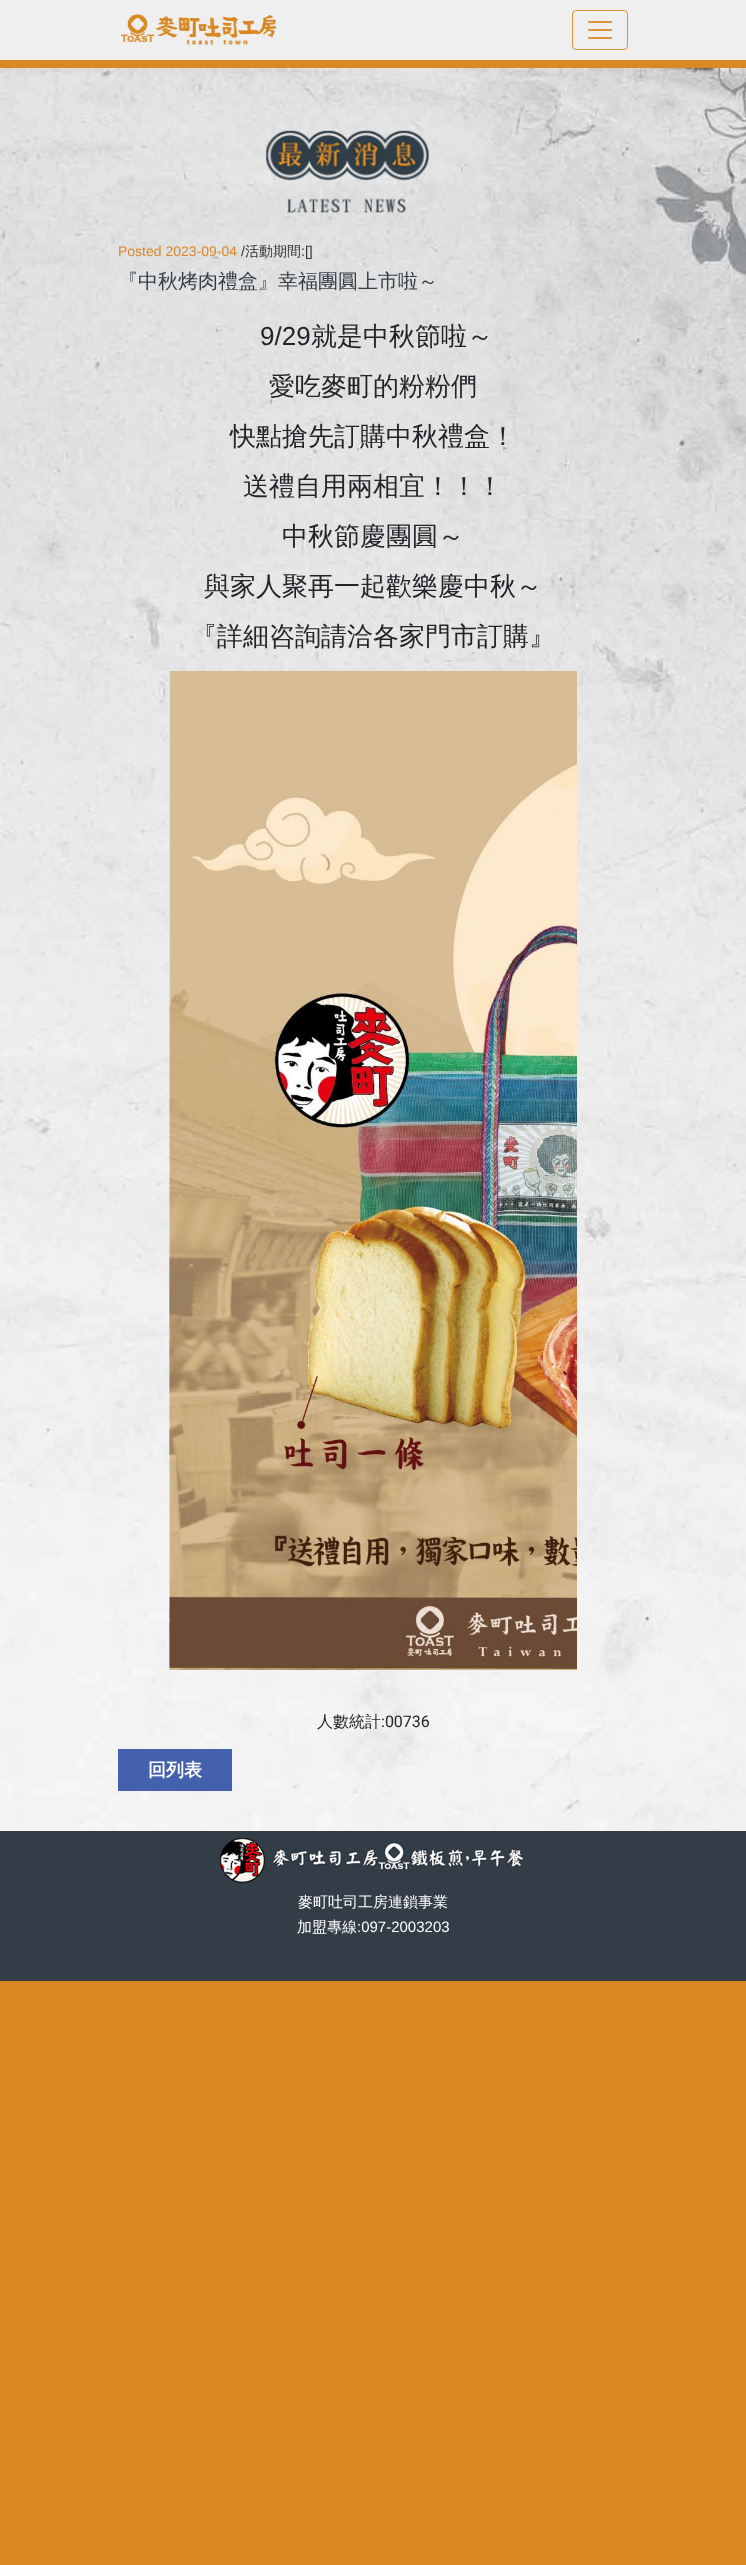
<?xml version="1.0" encoding="UTF-8"?>
<svg xmlns="http://www.w3.org/2000/svg" width="746" height="2565">
    <rect width="100%" height="100%" fill="#DA8824"/>
    <rect x="0" y="0" width="746" height="60" fill="#EFEFEF"/>
    <image x="121" y="14" width="155" height="31" href="img_01.png"/>
    <rect x="572.5" y="10.5" width="55" height="39" rx="3.5" fill="none" stroke="#DC9238"/>
    <image x="588" y="21" width="24" height="18" href="img_02.png"/>
    <image x="0" y="68" width="746" height="1763" href="img_03.png"/>
    <image x="266" y="130" width="163" height="83" href="img_04.png"/>
    <text x="118" y="256" font-family="Liberation Sans" font-size="14" fill="#DA8824">Posted 2023-09-04</text>
    <text x="241" y="256" font-family="Liberation Sans" font-size="14" fill="#333333">/</text>
    <text x="245" y="256" font-family="WenQuanYi Zen Hei" font-size="14" font-weight="500" fill="#333333">活動期間</text>
    <text x="301" y="256" font-family="Liberation Sans" font-size="14" fill="#333333">:[]</text>
    <text x="118" y="288" font-family="WenQuanYi Zen Hei" font-size="20" font-weight="500" fill="#323E48">『中秋烤肉禮盒』幸福團圓上市啦～</text>
    <text x="260" y="345" font-family="Liberation Sans" font-size="26" fill="#212529">9/29</text>
    <text x="311" y="345" font-family="WenQuanYi Zen Hei" font-size="26" font-weight="500" fill="#212529">就是中秋節啦～</text>
    <text x="269" y="395" font-family="WenQuanYi Zen Hei" font-size="26" font-weight="500" fill="#212529">愛吃麥町的粉粉們</text>
    <text x="230" y="445" font-family="WenQuanYi Zen Hei" font-size="26" font-weight="500" fill="#212529">快點搶先訂購中秋禮盒！</text>
    <text x="243" y="495" font-family="WenQuanYi Zen Hei" font-size="26" font-weight="500" fill="#212529">送禮自用兩相宜！！！</text>
    <text x="282" y="545" font-family="WenQuanYi Zen Hei" font-size="26" font-weight="500" fill="#212529">中秋節慶團圓～</text>
    <text x="204" y="595" font-family="WenQuanYi Zen Hei" font-size="26" font-weight="500" fill="#212529">與家人聚再一起歡樂慶中秋～</text>
    <text x="191" y="645" font-family="WenQuanYi Zen Hei" font-size="26" font-weight="500" fill="#212529">『詳細咨詢請洽各家門市訂購』</text>
    <image x="169" y="671" width="408" height="999" href="img_05.png"/>
    <text x="317" y="1727" font-family="WenQuanYi Zen Hei" font-size="16" font-weight="500" fill="#212529">人數統計</text>
    <text x="381" y="1727" font-family="Roboto" font-size="16" fill="#212529">:00736</text>
    <rect x="118" y="1749" width="114" height="42" fill="#4361AC"/>
    <text x="148" y="1776" font-family="WenQuanYi Zen Hei" font-size="18" font-weight="700" fill="#FFFFFF">回列表</text>
    <rect x="0" y="1831" width="746" height="150" fill="#333D47"/>
    <image x="214" y="1836" width="312" height="51" href="img_06.png"/>
    <text x="298" y="1907" font-family="WenQuanYi Zen Hei" font-size="15" font-weight="500" fill="#FFFFFF">麥町吐司工房連鎖事業</text>
    <text x="297" y="1932" font-family="WenQuanYi Zen Hei" font-size="15" font-weight="500" fill="#FFFFFF">加盟專線</text>
    <text x="357" y="1932" font-family="Liberation Sans" font-size="15" fill="#FFFFFF">:097-2003203</text>
</svg>
